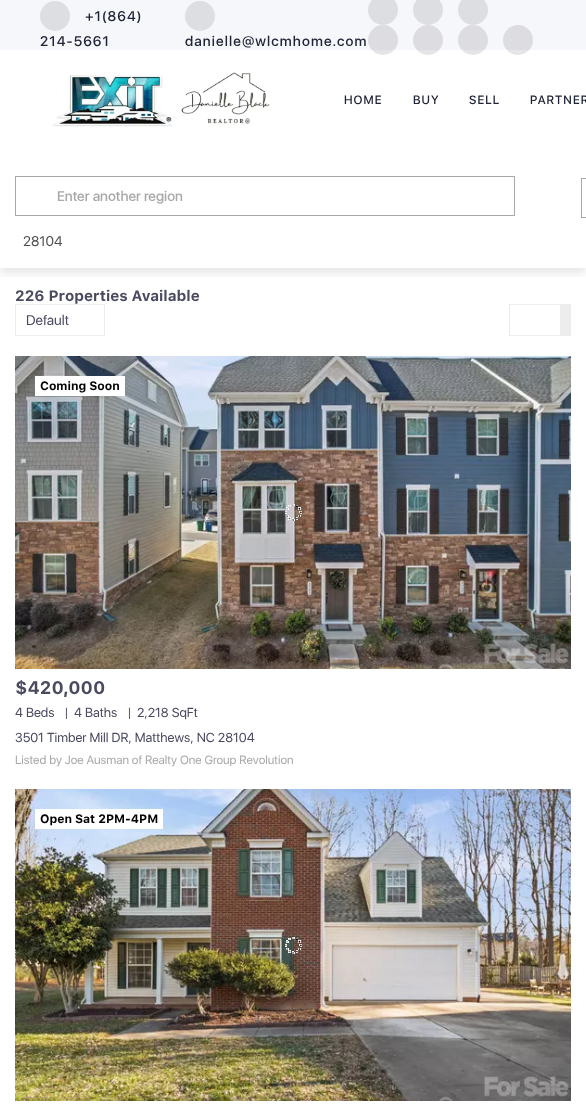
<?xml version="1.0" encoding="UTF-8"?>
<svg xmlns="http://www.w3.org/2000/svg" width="586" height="1110">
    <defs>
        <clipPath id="clip1"><rect x="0" y="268" width="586" height="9"/></clipPath>
        <filter id="blur1" x="-50%" y="-200%" width="200%" height="500%"><feGaussianBlur stdDeviation="5"/></filter>
        <clipPath id="clip2"><rect x="15" y="679" width="556" height="18"/></clipPath>
    </defs>
    <rect width="100%" height="100%" fill="#FFFFFF"/>
    <rect x="0" y="0" width="586" height="50" fill="#F6F7FB"/>
    <circle cx="55" cy="16" r="15" fill="#DDDEE2"/>
    <text x="85" y="21" font-family="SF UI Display" font-size="14" font-weight="500" letter-spacing="1.1" fill="#202437">+1(864)</text>
    <text x="40" y="46" font-family="SF UI Display" font-size="14" font-weight="500" letter-spacing="1.1" fill="#202437">214-5661</text>
    <circle cx="200" cy="16" r="15" fill="#DDDEE2"/>
    <text x="185" y="46" font-family="SF UI Display" font-size="14" font-weight="500" letter-spacing="1.1" fill="#202437">danielle@wlcmhome.com</text>
    <circle cx="383" cy="10" r="15" fill="#DDDEE2"/>
    <circle cx="428" cy="10" r="15" fill="#DDDEE2"/>
    <circle cx="473" cy="10" r="15" fill="#DDDEE2"/>
    <circle cx="383" cy="40" r="15" fill="#000000" fill-opacity="0.1"/>
    <circle cx="428" cy="40" r="15" fill="#000000" fill-opacity="0.1"/>
    <circle cx="473" cy="40" r="15" fill="#000000" fill-opacity="0.1"/>
    <circle cx="518" cy="40" r="15" fill="#000000" fill-opacity="0.1"/>
    <image x="52" y="72" width="218" height="55" href="img_01.png"/>
    <text x="344" y="104" font-family="SF UI Display" font-size="12" font-weight="500" letter-spacing="1.1" fill="#202437">HOME</text>
    <text x="413" y="104" font-family="SF UI Display" font-size="12" font-weight="500" letter-spacing="1.1" fill="#202437">BUY</text>
    <text x="469" y="104" font-family="SF UI Display" font-size="12" font-weight="500" letter-spacing="1.1" fill="#202437">SELL</text>
    <text x="530" y="104" font-family="SF UI Display" font-size="12" font-weight="500" letter-spacing="1.1" fill="#202437">PARTNER</text>
    <g clip-path="url(#clip1)">
        <rect x="0" y="166" width="586" height="107" fill="#000000" fill-opacity="0.1" filter="url(#blur1)"/>
    </g>
    <rect x="15.5" y="176.5" width="499" height="39" fill="none" stroke="#A8A8A8"/>
    <text x="57" y="201" font-family="SF UI Display" font-size="14" font-weight="500" fill="#A8A8A8">Enter another region</text>
    <rect x="581.5" y="178.5" width="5" height="39" fill="none" stroke="#A8A8A8"/>
    <text x="23" y="246" font-family="SF UI Display" font-size="14" fill="#505050">28104</text>
    <text x="15" y="301" font-family="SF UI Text" font-size="15" font-weight="700" fill="#4A4A60">226 Properties Available</text>
    <rect x="15.5" y="304.5" width="89" height="31" fill="none" stroke="#EDEDED"/>
    <text x="26" y="325" font-family="SF UI Display" font-size="14" fill="#4A4A60">Default</text>
    <rect x="509.5" y="304.5" width="61" height="31" fill="none" stroke="#EDEDED"/>
    <rect x="560" y="305" width="10" height="30" fill="#EDEDED"/>
    <image x="15" y="356" width="556" height="313" href="img_02.png"/>
    <image x="285" y="504" width="17" height="17" href="img_03.png"/>
    <rect x="35" y="376" width="90" height="20" fill="#FFFFFF"/>
    <text x="40" y="390" font-family="SF UI Text" font-size="12" font-weight="700" fill="#000000">Coming Soon</text>
    <g clip-path="url(#clip2)">
        <text x="15" y="694" font-family="SF UI Text" font-size="18" font-weight="700" fill="#4A4A60">$420,000</text>
    </g>
    <text x="15" y="717" font-family="SF UI Display" font-size="13" fill="#4A4A60">4 Beds</text>
    <text x="65" y="717" font-family="SF UI Display" font-size="13" fill="#4A4A60">|</text>
    <text x="74" y="717" font-family="SF UI Display" font-size="13" fill="#4A4A60">4 Baths</text>
    <text x="128" y="717" font-family="SF UI Display" font-size="13" fill="#4A4A60">|</text>
    <text x="137" y="717" font-family="SF UI Display" font-size="13" fill="#4A4A60">2,218 SqFt</text>
    <text x="15" y="742" font-family="SF UI Display" font-size="13" fill="#4A4A60">3501 Timber Mill DR, Matthews, NC 28104</text>
    <text x="15" y="764" font-family="SF UI Display" font-size="12" fill="#A8A8A8">Listed by Joe Ausman of Realty One Group Revolution</text>
    <image x="15" y="789" width="556" height="312" href="img_04.png"/>
    <image x="285" y="937" width="17" height="17" href="img_05.png"/>
    <rect x="35" y="809" width="128" height="20" fill="#FFFFFF"/>
    <text x="40" y="823" font-family="SF UI Text" font-size="12" font-weight="700" fill="#000000">Open Sat 2PM-4PM</text>
</svg>
